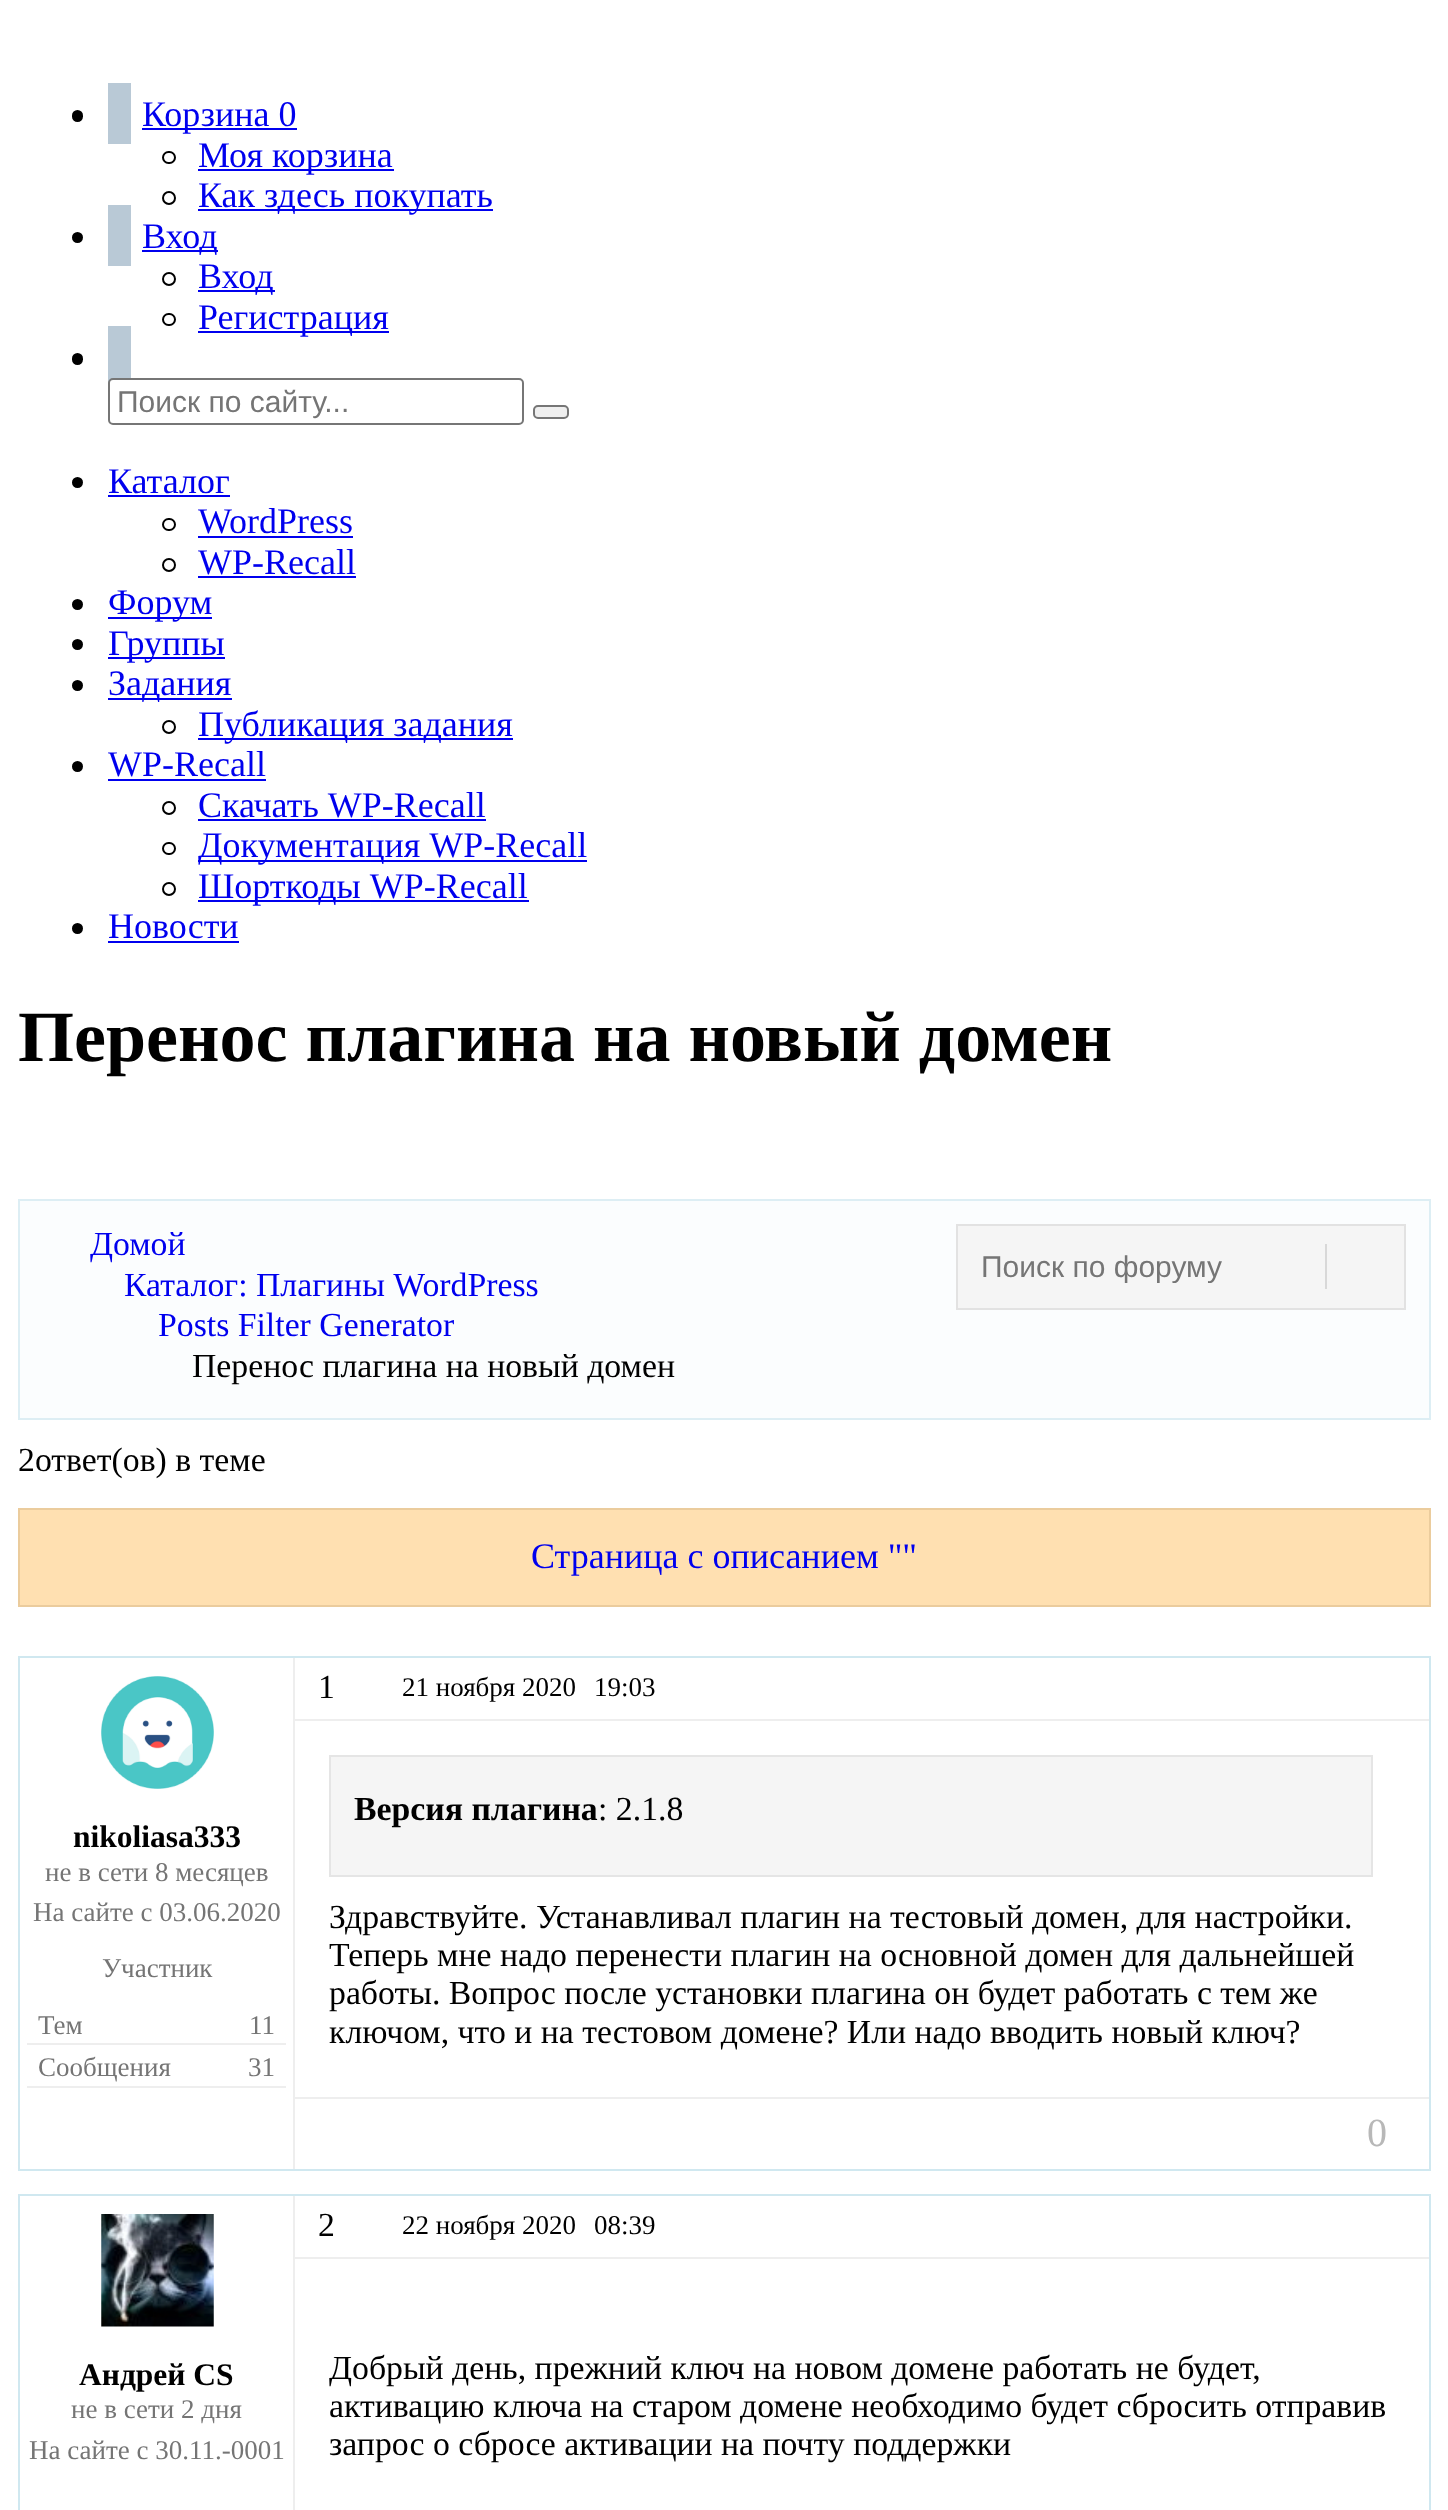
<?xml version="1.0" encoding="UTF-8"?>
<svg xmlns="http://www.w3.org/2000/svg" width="1448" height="2510">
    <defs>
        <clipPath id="clip1"><rect x="959" y="1249" width="445" height="34"/></clipPath>
    </defs>
    <rect width="100%" height="100%" fill="#FFFFFF"/>
    <rect x="72" y="110" width="11" height="12" rx="5.5" fill="#000000"/>
    <rect x="142" y="128" width="155" height="2" fill="#0000EE"/>
    <text x="142" y="126" font-family="Liberation Serif" font-size="36" fill="#0000EE">Корзина 0</text>
    <rect x="108" y="83" width="23" height="61" fill="#B9C9D6"/>
    <rect x="163" y="152" width="12" height="11" rx="5.5" fill="none" stroke="#000000" stroke-width="2"/>
    <rect x="198" y="169" width="196" height="2" fill="#0000EE"/>
    <text x="198" y="167" font-family="Liberation Serif" font-size="36" fill="#0000EE">Моя корзина</text>
    <circle cx="169" cy="198" r="6" fill="none" stroke="#000000" stroke-width="2"/>
    <rect x="198" y="209" width="295" height="2" fill="#0000EE"/>
    <text x="198" y="207" font-family="Liberation Serif" font-size="36" fill="#0000EE">Как здесь покупать</text>
    <circle cx="77.5" cy="237.5" r="5.5" fill="#000000"/>
    <rect x="142" y="250" width="76" height="2" fill="#0000EE"/>
    <text x="142" y="248" font-family="Liberation Serif" font-size="36" fill="#0000EE">Вход</text>
    <rect x="108" y="205" width="23" height="61" fill="#B9C9D6"/>
    <circle cx="169" cy="279" r="6" fill="none" stroke="#000000" stroke-width="2"/>
    <rect x="198" y="290" width="77" height="2" fill="#0000EE"/>
    <text x="198" y="288" font-family="Liberation Serif" font-size="36" fill="#0000EE">Вход</text>
    <rect x="163" y="314" width="12" height="11" rx="5.5" fill="none" stroke="#000000" stroke-width="2"/>
    <rect x="198" y="331" width="191" height="2" fill="#0000EE"/>
    <text x="198" y="329" font-family="Liberation Serif" font-size="36" fill="#0000EE">Регистрация</text>
    <rect x="72" y="353" width="11" height="12" rx="5.5" fill="#000000"/>
    <rect x="108" y="326" width="23" height="57" fill="#B9C9D6"/>
    <rect x="109" y="379" width="414" height="45" rx="4" fill="#FFFFFF" stroke="#767676" stroke-width="2"/>
    <text x="117" y="412" font-family="Liberation Sans" font-size="30" fill="#757575">Поиск по сайту...</text>
    <rect x="534" y="406" width="34" height="12" rx="4" fill="#EFEFEF" stroke="#767676" stroke-width="2"/>
    <circle cx="77.5" cy="482.5" r="5.5" fill="#000000"/>
    <text x="108" y="493" font-family="Liberation Serif" font-size="36" fill="#0000EE">Каталог</text>
    <rect x="108" y="495" width="122" height="2" fill="#0000EE"/>
    <rect x="163" y="519" width="12" height="11" rx="5.5" fill="none" stroke="#000000" stroke-width="2"/>
    <text x="198" y="533" font-family="Liberation Serif" font-size="36" fill="#0000EE">WordPress</text>
    <rect x="198" y="536" width="155" height="2" fill="#0000EE"/>
    <circle cx="169" cy="565" r="6" fill="none" stroke="#000000" stroke-width="2"/>
    <text x="198" y="574" font-family="Liberation Serif" font-size="36" fill="#0000EE">WP-Recall</text>
    <rect x="198" y="576" width="158" height="2" fill="#0000EE"/>
    <circle cx="77.5" cy="604.5" r="5.5" fill="#000000"/>
    <rect x="108" y="617" width="104" height="2" fill="#0000EE"/>
    <text x="108" y="614" font-family="Liberation Serif" font-size="36" fill="#0000EE">Форум</text>
    <circle cx="77.5" cy="644.5" r="5.5" fill="#000000"/>
    <rect x="108" y="657" width="117" height="2" fill="#0000EE"/>
    <text x="108" y="655" font-family="Liberation Serif" font-size="36" fill="#0000EE">Группы</text>
    <circle cx="77.5" cy="685.5" r="5.5" fill="#000000"/>
    <rect x="108" y="698" width="124" height="2" fill="#0000EE"/>
    <text x="108" y="695" font-family="Liberation Serif" font-size="36" fill="#0000EE">Задания</text>
    <circle cx="169" cy="727" r="6" fill="none" stroke="#000000" stroke-width="2"/>
    <rect x="198" y="738" width="315" height="2" fill="#0000EE"/>
    <text x="198" y="736" font-family="Liberation Serif" font-size="36" fill="#0000EE">Публикация задания</text>
    <circle cx="77.5" cy="766.5" r="5.5" fill="#000000"/>
    <text x="108" y="776" font-family="Liberation Serif" font-size="36" fill="#0000EE">WP-Recall</text>
    <rect x="108" y="779" width="158" height="2" fill="#0000EE"/>
    <circle cx="169" cy="808" r="6" fill="none" stroke="#000000" stroke-width="2"/>
    <text x="198" y="817" font-family="Liberation Serif" font-size="36" fill="#0000EE">Скачать WP-Recall</text>
    <rect x="198" y="819" width="288" height="2" fill="#0000EE"/>
    <rect x="163" y="843" width="12" height="11" rx="5.5" fill="none" stroke="#000000" stroke-width="2"/>
    <rect x="198" y="860" width="389" height="2" fill="#0000EE"/>
    <text x="198" y="857" font-family="Liberation Serif" font-size="36" fill="#0000EE">Документация WP-Recall</text>
    <circle cx="169" cy="889" r="6" fill="none" stroke="#000000" stroke-width="2"/>
    <rect x="198" y="900" width="331" height="2" fill="#0000EE"/>
    <text x="198" y="898" font-family="Liberation Serif" font-size="36" fill="#0000EE">Шорткоды WP-Recall</text>
    <circle cx="77.5" cy="928.5" r="5.5" fill="#000000"/>
    <text x="108" y="938" font-family="Liberation Serif" font-size="36" fill="#0000EE">Новости</text>
    <rect x="108" y="941" width="131" height="2" fill="#0000EE"/>
    <text x="18" y="1061" font-family="Liberation Serif" font-size="72" font-weight="700" fill="#000000">Перенос плагина на новый домен</text>
    <rect x="19" y="1200" width="1411" height="219" fill="#FBFDFE" stroke="#DDEEF4" stroke-width="2"/>
    <text x="90" y="1255" font-family="Liberation Serif" font-size="33.75" fill="#0000EE">Домой</text>
    <text x="124" y="1296" font-family="Liberation Serif" font-size="33.75" fill="#0000EE">Каталог: Плагины WordPress</text>
    <text x="158" y="1336" font-family="Liberation Serif" font-size="33.75" fill="#0000EE">Posts Filter Generator</text>
    <text x="192" y="1377" font-family="Liberation Serif" font-size="33.75" fill="#000000">Перенос плагина на новый домен</text>
    <rect x="957" y="1225" width="448" height="84" fill="#F5F5F5" stroke="#E2E2E2" stroke-width="2"/>
    <g clip-path="url(#clip1)">
        <text x="981" y="1277" font-family="Liberation Sans" font-size="30" fill="#757575">Поиск по форуму</text>
    </g>
    <rect x="1325" y="1244" width="2" height="45" fill="#D8D8D8"/>
    <text x="18" y="1471" font-family="Liberation Serif" font-size="33.75" fill="#000000">2ответ(ов) в теме</text>
    <rect x="19" y="1509" width="1411" height="97" fill="#FFE0B1" stroke="#EBCC9D" stroke-width="2"/>
    <text x="531" y="1568" font-family="Liberation Serif" font-size="36" fill="#0000EE">Страница c описанием ""</text>
    <rect x="19" y="1657" width="1411" height="513" fill="none" stroke="#D0E8F0" stroke-width="2"/>
    <rect x="293" y="1658" width="2" height="511" fill="#EEEEEE"/>
    <image x="101" y="1676" width="113" height="113" href="img_01.png"/>
    <text x="73" y="1847" font-family="Liberation Serif" font-size="31.5" font-weight="700" fill="#000000">nikoliasa333</text>
    <text x="45" y="1881" font-family="Liberation Serif" font-size="27" fill="#757575">не в сети 8 месяцев</text>
    <text x="33" y="1921" font-family="Liberation Serif" font-size="27" fill="#757575">На сайте с 03.06.2020</text>
    <text x="102" y="1977" font-family="Liberation Serif" font-size="27" fill="#757575">Участник</text>
    <rect x="27" y="2043" width="259" height="2" fill="#EEEEEE"/>
    <text x="38" y="2034" font-family="Liberation Serif" font-size="27" fill="#757575">Тем</text>
    <text x="249" y="2034" font-family="Liberation Serif" font-size="27" fill="#757575">11</text>
    <rect x="27" y="2086" width="259" height="2" fill="#EEEEEE"/>
    <text x="38" y="2076" font-family="Liberation Serif" font-size="27" fill="#757575">Сообщения</text>
    <text x="248" y="2076" font-family="Liberation Serif" font-size="27" fill="#757575">31</text>
    <rect x="295" y="1719" width="1134" height="2" fill="#EEEEEE"/>
    <text x="318" y="1698" font-family="Liberation Serif" font-size="33.75" fill="#000000">1</text>
    <text x="402" y="1696" font-family="Liberation Serif" font-size="27" fill="#000000">21 ноября 2020</text>
    <text x="594" y="1696" font-family="Liberation Serif" font-size="27" fill="#000000">19:03</text>
    <rect x="330" y="1756" width="1042" height="120" fill="#F5F5F5" stroke="#E5E5E5" stroke-width="2"/>
    <text x="354" y="1820" font-family="Liberation Serif" font-size="33.75" font-weight="700" fill="#000000">Версия плагина</text>
    <text x="598" y="1820" font-family="Liberation Serif" font-size="33.75" fill="#000000">: 2.1.8</text>
    <text font-family="Liberation Serif" font-size="33.75" fill="#000000">
        <tspan x="329" y="1928">Здравствуйте. Устанавливал плагин на тестовый домен, для настройки.</tspan>
        <tspan x="329" y="1966">Теперь мне надо перенести плагин на основной домен для дальнейшей</tspan>
        <tspan x="329" y="2004">работы. Вопрос после установки плагина он будет работать с тем же</tspan>
        <tspan x="329" y="2043">ключом, что и на тестовом домене? Или надо вводить новый ключ?</tspan>
    </text>
    <rect x="295" y="2097" width="1134" height="2" fill="#EEEEEE"/>
    <text x="1367" y="2146" font-family="Liberation Serif" font-size="40" fill="#B8B8B8">0</text>
    <rect x="19" y="2195" width="1411" height="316" fill="none" stroke="#D0E8F0" stroke-width="2"/>
    <rect x="293" y="2196" width="2" height="314" fill="#EEEEEE"/>
    <image x="101" y="2214" width="113" height="113" href="img_02.png"/>
    <text x="79" y="2385" font-family="Liberation Serif" font-size="31.5" font-weight="700" fill="#000000">Андрей CS</text>
    <text x="71" y="2418" font-family="Liberation Serif" font-size="27" fill="#757575">не в сети 2 дня</text>
    <text x="29" y="2459" font-family="Liberation Serif" font-size="27" fill="#757575">На сайте с 30.11.-0001</text>
    <rect x="295" y="2257" width="1134" height="2" fill="#EEEEEE"/>
    <text x="318" y="2236" font-family="Liberation Serif" font-size="33.75" fill="#000000">2</text>
    <text x="402" y="2234" font-family="Liberation Serif" font-size="27" fill="#000000">22 ноября 2020</text>
    <text x="594" y="2234" font-family="Liberation Serif" font-size="27" fill="#000000">08:39</text>
    <text font-family="Liberation Serif" font-size="33.75" fill="#000000">
        <tspan x="329" y="2379">Добрый день, прежний ключ на новом домене работать не будет,</tspan>
        <tspan x="329" y="2417">активацию ключа на старом домене необходимо будет сбросить отправив</tspan>
        <tspan x="329" y="2455">запрос о сбросе активации на почту поддержки</tspan>
    </text>
</svg>
